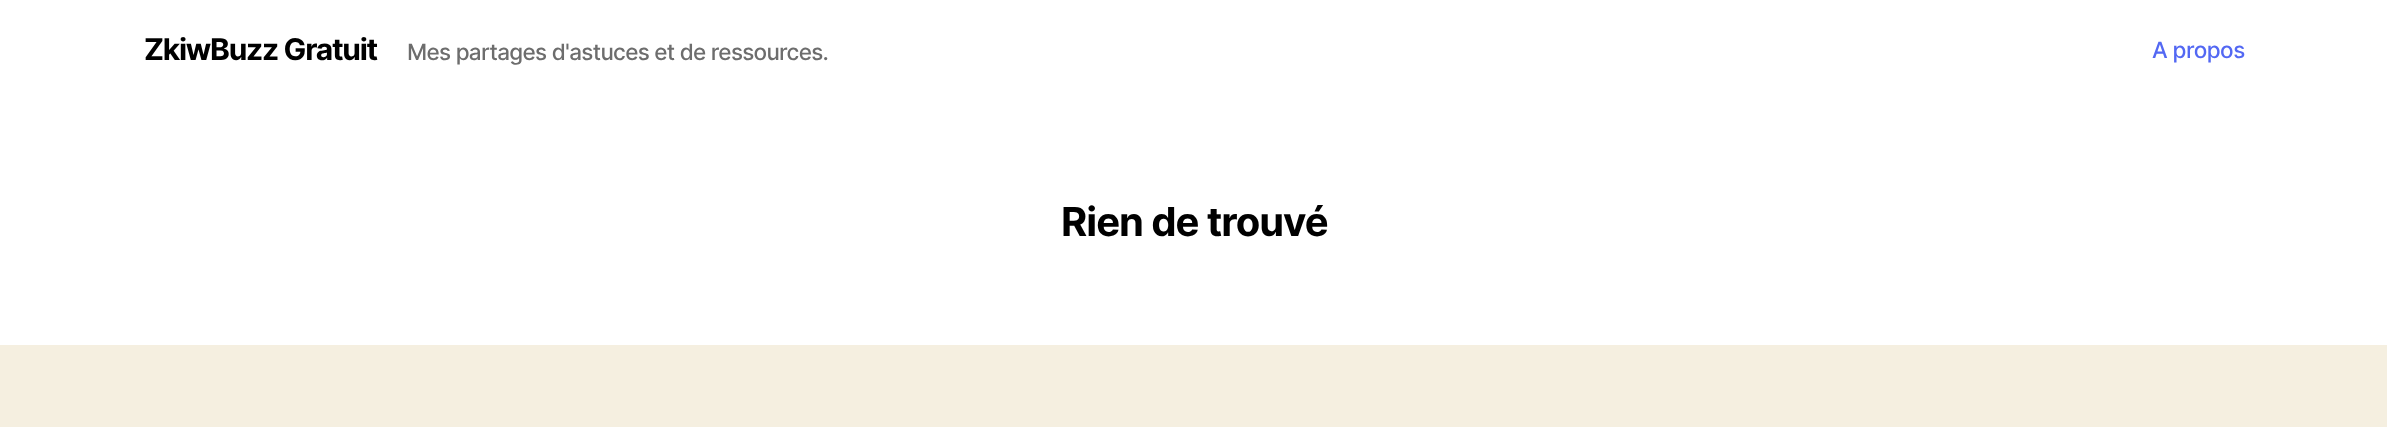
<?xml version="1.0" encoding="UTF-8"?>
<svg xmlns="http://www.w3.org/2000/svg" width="2387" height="427">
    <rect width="100%" height="100%" fill="#F5EFE0"/>
    <rect x="0" y="0" width="2387" height="345" fill="#FFFFFF"/>
    <text x="144" y="60" font-family="Inter" font-size="30" font-weight="700" letter-spacing="-1.25" fill="#000000">ZkiwBuzz Gratuit</text>
    <text x="407" y="60" font-family="Inter" font-size="22.5" font-weight="500" letter-spacing="-0.7" fill="#6D6D6D">Mes partages d'astuces et de ressources.</text>
    <text x="2152" y="58" font-family="Inter" font-size="22.5" font-weight="500" letter-spacing="-0.5" fill="#5368F3">A propos</text>
    <text x="1061" y="236" font-family="Inter" font-size="40" font-weight="700" letter-spacing="-1" fill="#000000">Rien de trouvé</text>
</svg>
